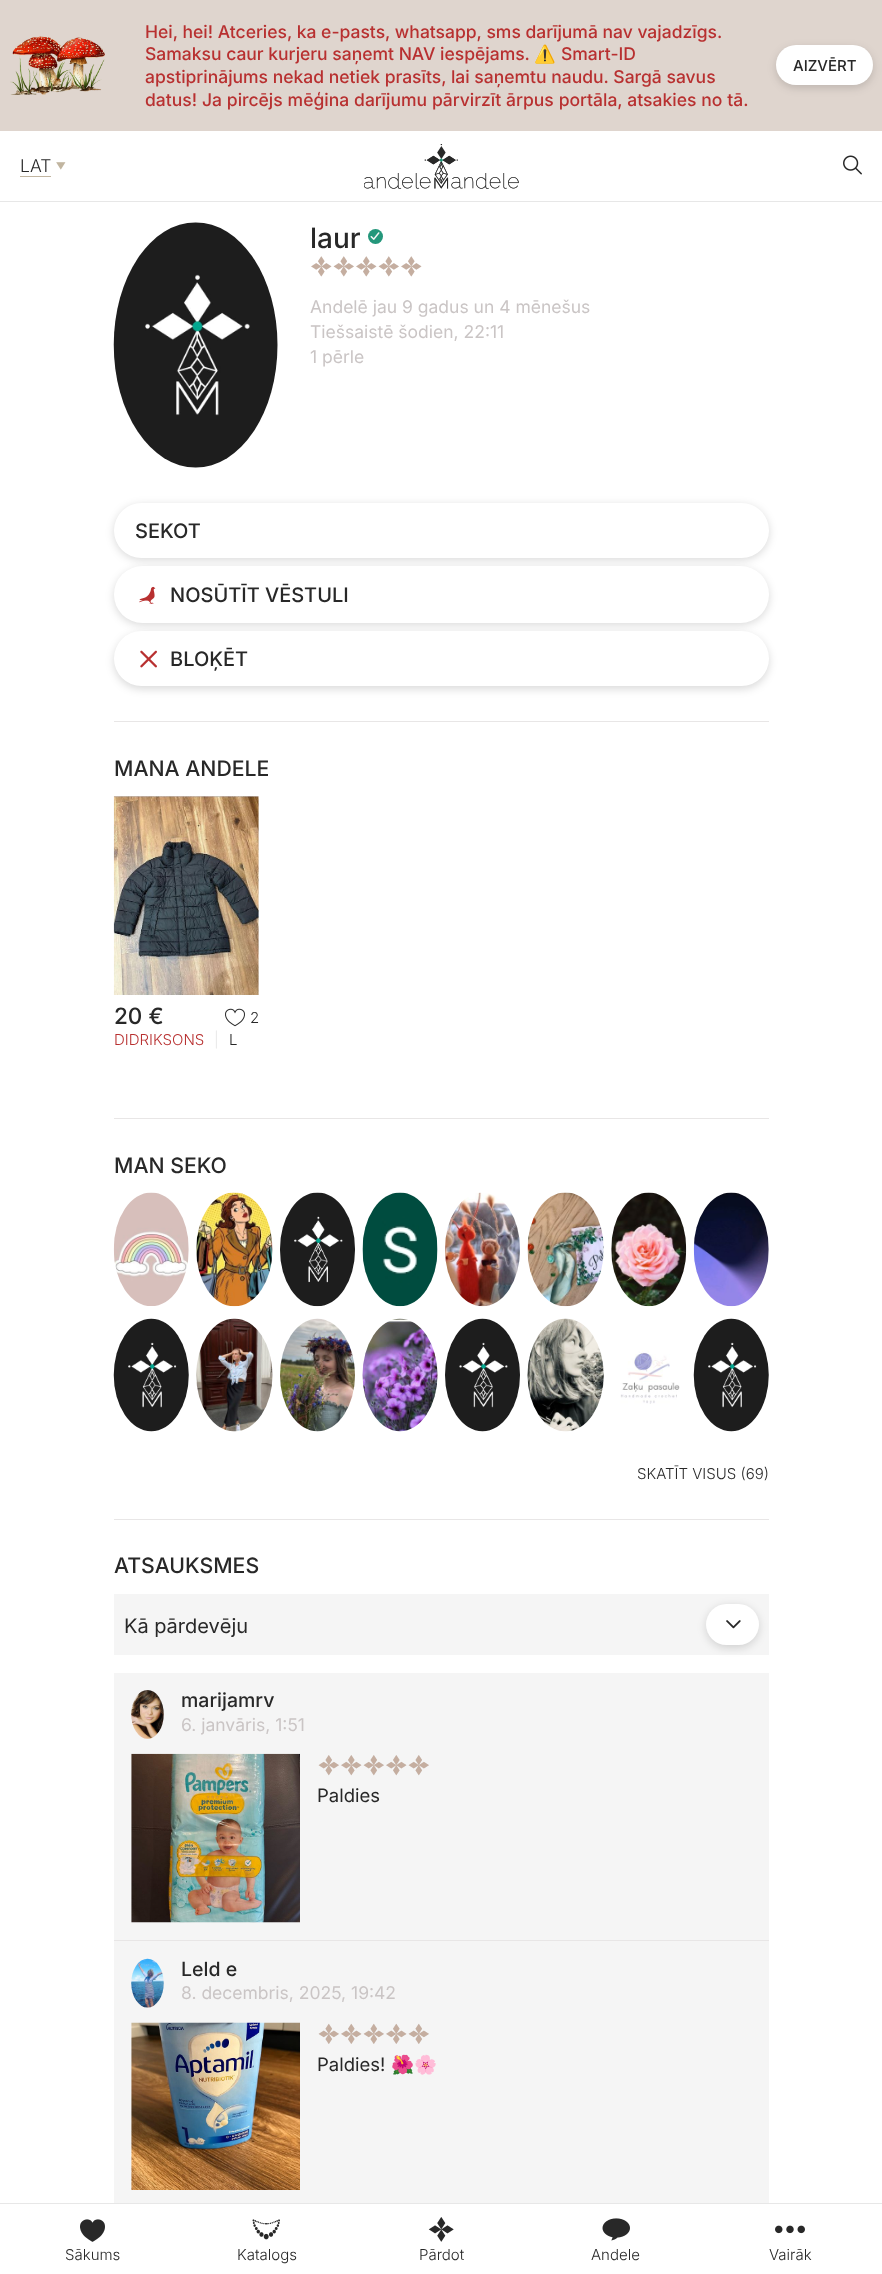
<?xml version="1.0" encoding="UTF-8"?>
<svg xmlns="http://www.w3.org/2000/svg" width="882" height="2274">
    <defs>
        <filter id="blur1" x="-50%" y="-200%" width="200%" height="500%"><feGaussianBlur stdDeviation="4"/></filter>
    </defs>
    <rect width="100%" height="100%" fill="#FFFFFF"/>
    <rect x="0" y="0" width="882" height="131" fill="#DFD5CE"/>
    <image x="10" y="36" width="95" height="59" href="img_01.png"/>
    <text font-family="Inter" font-size="17.5" font-weight="500" fill="#B83030">
        <tspan x="145" y="38">Hei, hei! Atceries, ka e-pasts, whatsapp, sms darījumā nav vajadzīgs.</tspan>
        <tspan x="145" y="60">Samaksu caur kurjeru saņemt NAV iespējams.</tspan>
    </text>
    <text x="534" y="60" font-family="Noto Color Emoji" font-size="17.5" fill="#B83030">⚠️</text>
    <text x="561" y="60" font-family="Inter" font-size="17.5" font-weight="500" fill="#B83030">Smart-ID</text>
    <text font-family="Inter" font-size="17.5" font-weight="500" fill="#B83030">
        <tspan x="145" y="83">apstiprinājums nekad netiek prasīts, lai saņemtu naudu. Sargā savus</tspan>
        <tspan x="145" y="106" word-spacing="0.25">datus! Ja pircējs mēģina darījumu pārvirzīt ārpus portāla, atsakies no tā.</tspan>
    </text>
    <rect x="776" y="48" width="97" height="40" rx="20" fill="#000000" fill-opacity="0.15" filter="url(#blur1)"/>
    <rect x="776" y="45" width="97" height="40" rx="20" fill="#FFFFFF"/>
    <text x="793" y="71" font-family="Inter" font-size="15" font-weight="500" fill="#282828">AIZVĒRT</text>
    <rect x="0" y="201" width="882" height="1" fill="#E7E7E7"/>
    <text x="20" y="172" font-family="Inter" font-size="17.5" font-weight="300" fill="#282828">LAT</text>
    <rect x="20" y="176" width="31" height="1" fill="#C1B5A0"/>
    <image x="56" y="162" width="10" height="8" href="img_02.png"/>
    <image x="364" y="144" width="155" height="45" href="img_03.png"/>
    <image x="843" y="155" width="19" height="20" href="img_04.png"/>
    <image x="113" y="222" width="165" height="246" href="img_05.png"/>
    <text x="310" y="248" font-family="Inter" font-size="28" font-weight="500" fill="#282828">laur</text>
    <circle cx="375.5" cy="236.5" r="7.5" fill="#24977B"/>
    <image x="370" y="232" width="10" height="8" href="img_06.png"/>
    <image x="311" y="256" width="20" height="20" href="img_07.png"/>
    <image x="334" y="256" width="20" height="20" href="img_08.png"/>
    <image x="356" y="256" width="20" height="20" href="img_07.png"/>
    <image x="379" y="256" width="20" height="20" href="img_08.png"/>
    <image x="401" y="256" width="20" height="20" href="img_07.png"/>
    <image x="311" y="256" width="21" height="21" href="img_09.png"/>
    <image x="333" y="256" width="21" height="21" href="img_10.png"/>
    <image x="356" y="256" width="21" height="21" href="img_09.png"/>
    <image x="378" y="256" width="21" height="21" href="img_10.png"/>
    <image x="401" y="256" width="21" height="21" href="img_09.png"/>
    <text font-family="Inter" font-size="17.5" fill="#CAC5C5">
        <tspan x="310" y="313">Andelē jau 9 gadus un 4 mēnešus</tspan>
        <tspan x="310" y="338">Tiešsaistē šodien, 22:11</tspan>
        <tspan x="310" y="363">1 pērle</tspan>
    </text>
    <rect x="114" y="505" width="655" height="55" rx="27.5" fill="#000000" fill-opacity="0.15" filter="url(#blur1)"/>
    <rect x="114" y="503" width="655" height="55" rx="27.5" fill="#FFFFFF"/>
    <text x="135" y="538" font-family="Inter" font-size="20" font-weight="500" fill="#282828">SEKOT</text>
    <rect x="114" y="569" width="655" height="56" rx="28" fill="#000000" fill-opacity="0.15" filter="url(#blur1)"/>
    <rect x="114" y="566" width="655" height="57" rx="28.5" fill="#FFFFFF"/>
    <image x="139" y="586" width="17" height="18" href="img_11.png"/>
    <text x="170" y="602" font-family="Inter" font-size="20" font-weight="500" fill="#282828">NOSŪTĪT VĒSTULI</text>
    <rect x="114" y="634" width="655" height="55" rx="27.5" fill="#000000" fill-opacity="0.15" filter="url(#blur1)"/>
    <rect x="114" y="631" width="655" height="55" rx="27.5" fill="#FFFFFF"/>
    <image x="140" y="650" width="17" height="18" href="img_12.png"/>
    <text x="170" y="666" font-family="Inter" font-size="20" font-weight="500" fill="#282828">BLOĶĒT</text>
    <rect x="114" y="721" width="655" height="1" fill="#E8E6E6"/>
    <text x="114" y="776" font-family="Inter" font-size="21.25" font-weight="500" fill="#282828">MANA ANDELE</text>
    <rect x="114" y="796" width="145" height="199" fill="#F6F6F6"/>
    <image x="113" y="796" width="146" height="199" href="img_13.png"/>
    <text x="114" y="1024" font-family="Inter" font-size="22.5" font-weight="500" fill="#282828">20 €</text>
    <image x="225" y="1008" width="20" height="19" href="img_14.png"/>
    <text x="250" y="1023" font-family="Inter" font-size="15" font-weight="300" fill="#282828">2</text>
    <text x="114" y="1045" font-family="Inter" font-size="15" font-weight="300" fill="#B83030">DIDRIKSONS</text>
    <text x="214" y="1045" font-family="Inter" font-size="15" font-weight="300" fill="#E7E7E7">|</text>
    <text x="229" y="1045" font-family="Inter" font-size="15" font-weight="300" fill="#282828">L</text>
    <rect x="114" y="1118" width="655" height="1" fill="#E8E6E6"/>
    <text x="114" y="1173" font-family="Inter" font-size="21.25" font-weight="500" fill="#282828">MAN SEKO</text>
    <image x="113" y="1192" width="76" height="114" href="img_15.png"/>
    <image x="196" y="1192" width="77" height="115" href="img_16.png"/>
    <image x="280" y="1192" width="75" height="115" href="img_17.png"/>
    <image x="362" y="1192" width="76" height="115" href="img_18.png"/>
    <image x="445" y="1192" width="75" height="115" href="img_19.png"/>
    <image x="527" y="1192" width="77" height="115" href="img_20.png"/>
    <image x="611" y="1192" width="76" height="115" href="img_21.png"/>
    <image x="693" y="1192" width="76" height="115" href="img_22.png"/>
    <image x="113" y="1318" width="76" height="114" href="img_23.png"/>
    <image x="196" y="1318" width="77" height="114" href="img_24.png"/>
    <image x="280" y="1318" width="75" height="114" href="img_25.png"/>
    <image x="362" y="1318" width="76" height="114" href="img_26.png"/>
    <image x="445" y="1318" width="75" height="114" href="img_27.png"/>
    <image x="527" y="1318" width="77" height="114" href="img_28.png"/>
    <image x="620" y="1350" width="60" height="54" href="img_29.png"/>
    <image x="693" y="1318" width="76" height="114" href="img_30.png"/>
    <text x="637" y="1479" font-family="Inter" font-size="15" font-weight="300" fill="#282828">SKATĪT VISUS (69)</text>
    <rect x="114" y="1519" width="655" height="1" fill="#E8E6E6"/>
    <text x="114" y="1573" font-family="Inter" font-size="21.25" font-weight="500" fill="#282828">ATSAUKSMES</text>
    <rect x="114" y="1594" width="655" height="61" fill="#F5F5F5"/>
    <text x="124" y="1633" font-family="Inter" font-size="20" fill="#282828">Kā pārdevēju</text>
    <rect x="706" y="1606" width="53" height="42" rx="21" fill="#000000" fill-opacity="0.15" filter="url(#blur1)"/>
    <rect x="706" y="1604" width="53" height="41" rx="20.5" fill="#FFFFFF"/>
    <image x="726" y="1620" width="15" height="9" href="img_31.png"/>
    <rect x="114" y="1673" width="655" height="267" fill="#F5F5F5"/>
    <image x="131" y="1690" width="33" height="49" href="img_32.png"/>
    <text x="181" y="1707" font-family="Inter" font-size="19.5" font-weight="500" fill="#282828">marijamrv</text>
    <text x="181" y="1731" font-family="Inter" font-size="17.5" fill="#CAC5C5">6. janvāris, 1:51</text>
    <image x="131" y="1753" width="169" height="170" href="img_33.png"/>
    <image x="319" y="1755" width="20" height="20" href="img_36.png"/>
    <image x="318" y="1755" width="21" height="21" href="img_34.png"/>
    <image x="341" y="1755" width="20" height="20" href="img_37.png"/>
    <image x="341" y="1755" width="21" height="21" href="img_35.png"/>
    <image x="364" y="1755" width="20" height="20" href="img_36.png"/>
    <image x="363" y="1755" width="21" height="21" href="img_34.png"/>
    <image x="386" y="1755" width="20" height="20" href="img_37.png"/>
    <image x="386" y="1755" width="21" height="21" href="img_35.png"/>
    <image x="409" y="1755" width="20" height="20" href="img_36.png"/>
    <image x="408" y="1755" width="21" height="21" href="img_34.png"/>
    <text x="317" y="1802" font-family="Inter" font-size="18.5" fill="#282828">Paldies</text>
    <rect x="114" y="1941" width="655" height="262" fill="#F5F5F5"/>
    <rect x="114" y="1940" width="655" height="1" fill="#E8E6E6"/>
    <image x="131" y="1958" width="33" height="50" href="img_38.png"/>
    <text x="181" y="1976" font-family="Inter" font-size="19.5" font-weight="500" fill="#282828">Leld e</text>
    <text x="181" y="1999" font-family="Inter" font-size="17.5" fill="#CAC5C5">8. decembris, 2025, 19:42</text>
    <image x="131" y="2022" width="169" height="168" href="img_39.png"/>
    <image x="319" y="2024" width="20" height="20" href="img_42.png"/>
    <image x="318" y="2023" width="21" height="21" href="img_40.png"/>
    <image x="341" y="2024" width="20" height="20" href="img_43.png"/>
    <image x="341" y="2023" width="21" height="21" href="img_41.png"/>
    <image x="364" y="2024" width="20" height="20" href="img_42.png"/>
    <image x="363" y="2023" width="21" height="21" href="img_40.png"/>
    <image x="386" y="2024" width="20" height="20" href="img_43.png"/>
    <image x="386" y="2023" width="21" height="21" href="img_41.png"/>
    <image x="409" y="2024" width="20" height="20" href="img_42.png"/>
    <image x="408" y="2023" width="21" height="21" href="img_40.png"/>
    <text x="317" y="2071" font-family="Inter" font-size="18.5" fill="#282828">Paldies!</text>
    <text x="391" y="2071" font-family="Noto Color Emoji" font-size="18.5" fill="#282828">🌺🌸</text>
    <rect x="0" y="2203" width="882" height="1" fill="#E7E7E7"/>
    <image x="80" y="2219" width="25" height="23" href="img_44.png"/>
    <text x="65" y="2260" font-family="Inter" font-size="15" font-weight="300" fill="#282828">Sākums</text>
    <image x="252" y="2219" width="28" height="21" href="img_45.png"/>
    <text x="237" y="2260" font-family="Inter" font-size="15" font-weight="300" fill="#282828">Katalogs</text>
    <image x="428" y="2217" width="26" height="25" href="img_46.png"/>
    <text x="419" y="2260" font-family="Inter" font-size="15" font-weight="300" fill="#282828">Pārdot</text>
    <image x="602" y="2218" width="28" height="23" href="img_47.png"/>
    <text x="591" y="2260" font-family="Inter" font-size="15" font-weight="300" fill="#282828">Andele</text>
    <image x="775" y="2225" width="30" height="9" href="img_48.png"/>
    <text x="769" y="2260" font-family="Inter" font-size="15" font-weight="300" fill="#282828">Vairāk</text>
</svg>
